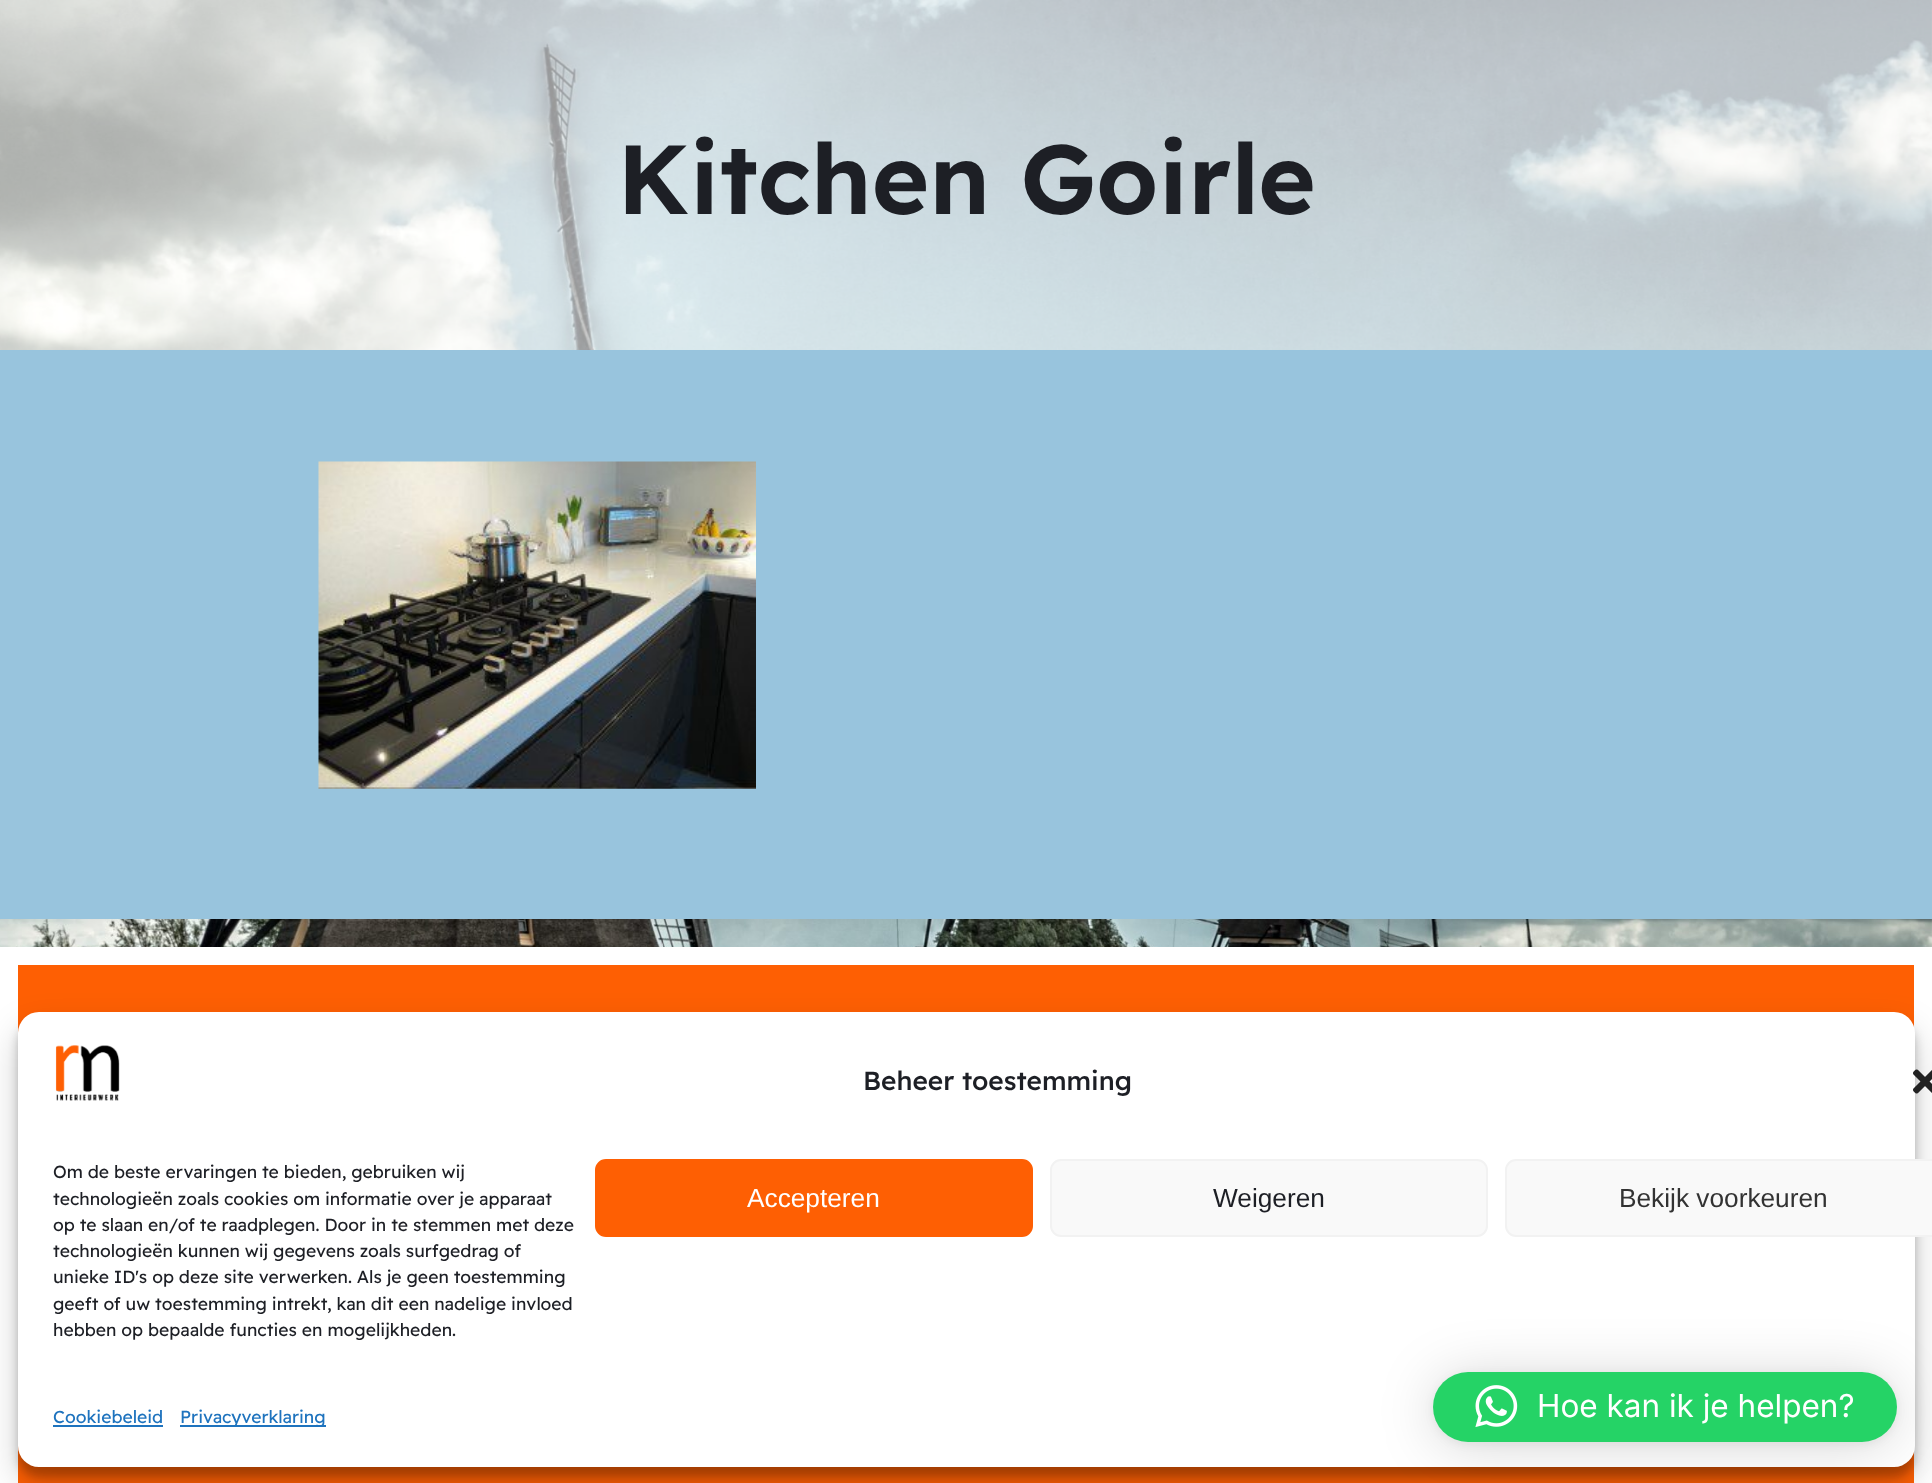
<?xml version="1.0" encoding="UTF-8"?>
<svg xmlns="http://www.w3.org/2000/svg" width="1932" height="1483">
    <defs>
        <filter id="blur1" x="-50%" y="-200%" width="200%" height="500%"><feGaussianBlur stdDeviation="5"/></filter>
        <filter id="blur2" x="-50%" y="-200%" width="200%" height="500%"><feGaussianBlur stdDeviation="17.5"/></filter>
        <filter id="blur3" x="-50%" y="-200%" width="200%" height="500%"><feGaussianBlur stdDeviation="28"/></filter>
    </defs>
    <rect width="100%" height="100%" fill="#FFFFFF"/>
    <image x="0" y="0" width="1932" height="947" href="img_01.png"/>
    <rect x="0" y="0" width="1932" height="32" fill="#FFFFFF" fill-opacity="0.6"/>
    <rect x="0" y="32" width="1932" height="318" fill="#FFFFFF" fill-opacity="0.6"/>
    <text x="617" y="214" font-family="Readex Pro" font-size="98" font-weight="600" fill="#1D1F25">Kitchen Goirle</text>
    <rect x="0" y="350" width="1932" height="569" fill="#98C4DD"/>
    <image x="318" y="461" width="438" height="328" href="img_02.png"/>
    <rect x="18" y="965" width="1896" height="518" fill="#FE5F03"/>
    <rect x="18" y="1022" width="1897" height="455" rx="21" fill="#000000" fill-opacity="0.23" filter="url(#blur1)"/>
    <rect x="18" y="1029" width="1897" height="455" rx="21" fill="#000000" fill-opacity="0.19" filter="url(#blur2)"/>
    <rect x="18" y="1012" width="1897" height="455" rx="21" fill="#FFFFFF"/>
    <image x="55" y="1045" width="65" height="56" href="img_03.png"/>
    <text x="863" y="1090" font-family="Readex Pro" font-size="26.25" font-weight="500" fill="#1D1F25">Beheer toestemming</text>
    <image x="1913" y="1069" width="19" height="25" href="img_04.png"/>
    <text font-family="Readex Pro" font-size="17.5" fill="#1D1F25">
        <tspan x="53" y="1178">Om de beste ervaringen te bieden, gebruiken wij</tspan>
        <tspan x="53" y="1205">technologieën zoals cookies om informatie over je apparaat</tspan>
        <tspan x="53" y="1231">op te slaan en/of te raadplegen. Door in te stemmen met deze</tspan>
        <tspan x="53" y="1257">technologieën kunnen wij gegevens zoals surfgedrag of</tspan>
        <tspan x="53" y="1283">unieke ID's op deze site verwerken. Als je geen toestemming</tspan>
        <tspan x="53" y="1310">geeft of uw toestemming intrekt, kan dit een nadelige invloed</tspan>
        <tspan x="53" y="1336">hebben op bepaalde functies en mogelijkheden.</tspan>
    </text>
    <rect x="596" y="1160" width="436" height="76" rx="10" fill="#FE5F03" stroke="#FE5F03" stroke-width="2"/>
    <text x="747" y="1207" font-family="Liberation Sans" font-size="26.25" fill="#FFFFFF">Accepteren</text>
    <rect x="1051" y="1160" width="436" height="76" rx="10" fill="#F9F9F9" stroke="#F2F2F2" stroke-width="2"/>
    <text x="1213" y="1207" font-family="Liberation Sans" font-size="26.25" fill="#1D1F25">Weigeren</text>
    <rect x="1506" y="1160" width="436" height="76" rx="10" fill="#F9F9F9" stroke="#F2F2F2" stroke-width="2"/>
    <text x="1619" y="1207" font-family="Liberation Sans" font-size="26.25" fill="#333333">Bekijk voorkeuren</text>
    <text x="53" y="1423" font-family="Readex Pro" font-size="17.5" fill="#1E73BE">Cookiebeleid</text>
    <rect x="53" y="1425" width="110" height="2" fill="#1E73BE"/>
    <rect x="180" y="1425" width="146" height="2" fill="#1E73BE"/>
    <text x="180" y="1423" font-family="Readex Pro" font-size="17.5" fill="#1E73BE">Privacyverklaring</text>
    <rect x="1433" y="1376" width="464" height="70" rx="35" fill="#000000" fill-opacity="0.16" filter="url(#blur3)"/>
    <rect x="1433" y="1374" width="464" height="70" rx="35" fill="#000000" fill-opacity="0.06" filter="url(#blur1)"/>
    <rect x="1433" y="1372" width="464" height="70" rx="35" fill="#25D366"/>
    <image x="1475" y="1385" width="43" height="43" href="img_05.png"/>
    <text x="1537" y="1417" font-family="Inter" font-size="31.5" fill="#FFFFFF">Hoe kan ik je helpen?</text>
</svg>
